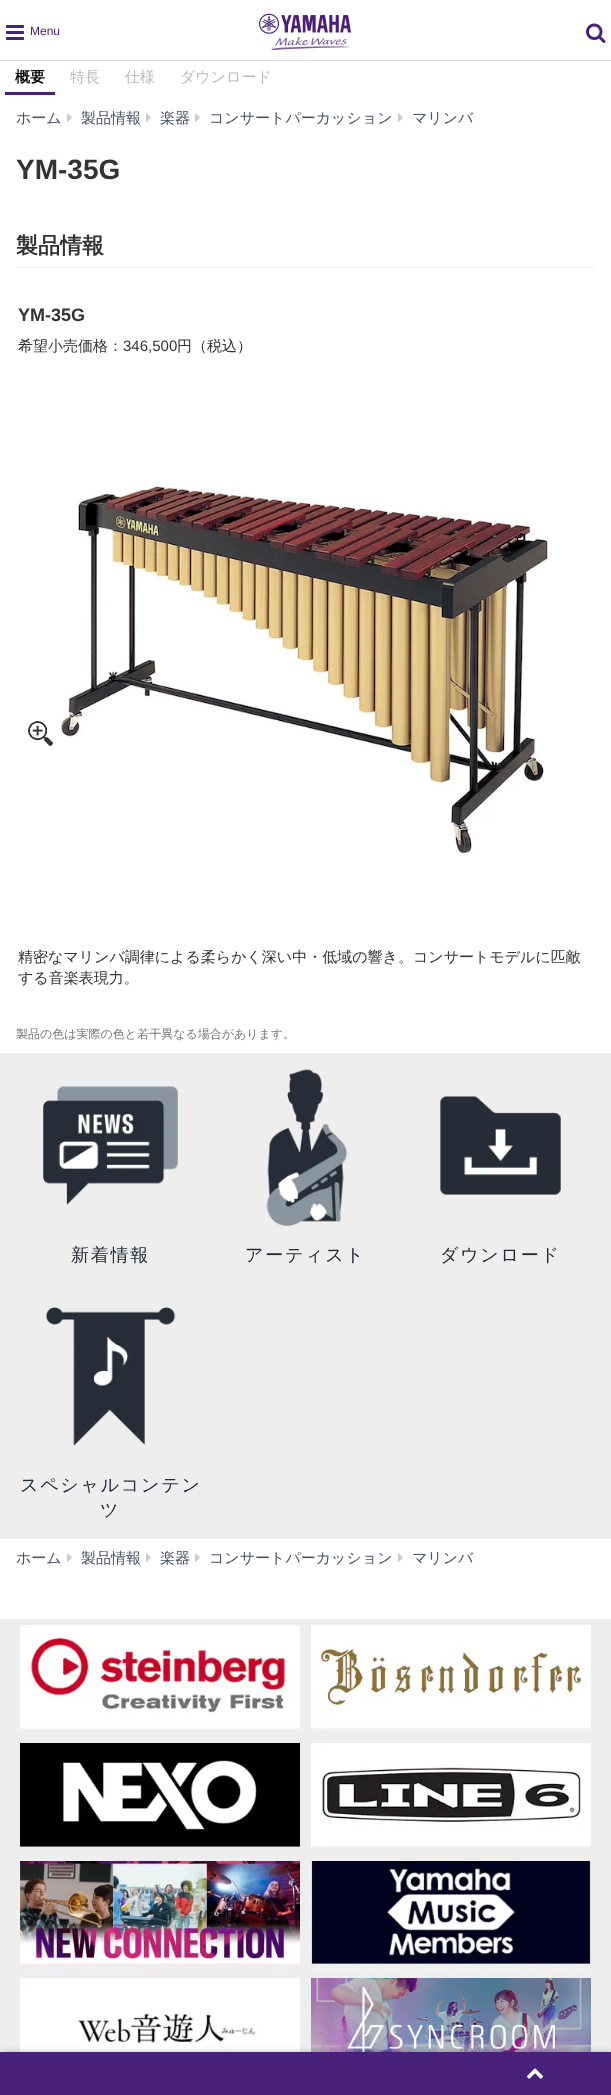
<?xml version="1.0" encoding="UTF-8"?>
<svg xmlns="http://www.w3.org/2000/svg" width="611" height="2095">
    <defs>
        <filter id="blur1" x="-50%" y="-200%" width="200%" height="500%"><feGaussianBlur stdDeviation="2.5"/></filter>
    </defs>
    <rect width="100%" height="100%" fill="#FFFFFF"/>
    <rect x="0" y="60" width="611" height="1" fill="#DDDDDD"/>
    <image x="6" y="25" width="18" height="15" href="img_01.png"/>
    <text x="30" y="35" font-family="Liberation Sans" font-size="12" fill="#48217A">Menu</text>
    <image x="259" y="13" width="92" height="37" href="img_02.png"/>
    <image x="586" y="23" width="20" height="20" href="img_03.png"/>
    <rect x="5" y="92" width="50" height="3" fill="#48217A"/>
    <text x="15" y="82" font-family="WenQuanYi Zen Hei" font-size="15" font-weight="700" fill="#000000">概要</text>
    <text x="70" y="82" font-family="WenQuanYi Zen Hei" font-size="15" font-weight="500" fill="#BBBBBB">特長</text>
    <text x="125" y="82" font-family="WenQuanYi Zen Hei" font-size="15" font-weight="500" fill="#BBBBBB">仕様</text>
    <text x="180" y="82" font-family="WenQuanYi Zen Hei" font-size="15" font-weight="500" fill="#BBBBBB">ダウンロード</text>
    <text x="16" y="123" font-family="WenQuanYi Zen Hei" font-size="15" font-weight="500" fill="#445166">ホーム</text>
    <image x="67" y="113" width="5" height="9" href="img_04.png"/>
    <text x="81" y="123" font-family="WenQuanYi Zen Hei" font-size="15" font-weight="500" fill="#445166">製品情報</text>
    <image x="146" y="113" width="5" height="9" href="img_04.png"/>
    <text x="160" y="123" font-family="WenQuanYi Zen Hei" font-size="15" font-weight="500" fill="#445166">楽器</text>
    <image x="195" y="113" width="5" height="9" href="img_04.png"/>
    <text x="209" y="123" font-family="WenQuanYi Zen Hei" font-size="15" font-weight="500" fill="#445166">コンサートパーカッション</text>
    <image x="398" y="113" width="5" height="9" href="img_04.png"/>
    <text x="412" y="123" font-family="WenQuanYi Zen Hei" font-size="15" font-weight="500" fill="#445166">マリンバ</text>
    <text x="16" y="179" font-family="Liberation Sans" font-size="28" font-weight="700" fill="#333333">YM-35G</text>
    <rect x="16" y="267" width="579" height="1" fill="#EEEEEE"/>
    <text x="16" y="253" font-family="WenQuanYi Zen Hei" font-size="22" font-weight="700" fill="#333333">製品情報</text>
    <text x="18" y="321" font-family="Liberation Sans" font-size="18" font-weight="700" fill="#333333">YM-35G</text>
    <text x="18" y="351" font-family="WenQuanYi Zen Hei" font-size="15" font-weight="500" fill="#333333">希望小売価格：</text>
    <text x="123" y="351" font-family="Liberation Sans" font-size="15" fill="#333333">346,500</text>
    <text x="177" y="351" font-family="WenQuanYi Zen Hei" font-size="15" font-weight="500" fill="#333333">円（税込）</text>
    <image x="28" y="721" width="25" height="25" href="img_05.png"/>
    <image x="60" y="485" width="490" height="371" href="img_06.png"/>
    <text font-family="WenQuanYi Zen Hei" font-size="15" font-weight="500" fill="#333333">
        <tspan x="18" y="962">精密なマリンバ調律による柔らかく深い中・低域の響き。コンサートモデルに匹敵</tspan>
        <tspan x="18" y="983">する音楽表現力。</tspan>
    </text>
    <text x="16" y="1038" font-family="WenQuanYi Zen Hei" font-size="12" font-weight="500" fill="#777777">製品の色は実際の色と若干異なる場合があります。</text>
    <rect x="0" y="1053" width="611" height="486" fill="#EEEEEE"/>
    <image x="43" y="1086" width="135" height="119" href="img_07.png"/>
    <text x="71" y="1261" font-family="WenQuanYi Zen Hei" font-size="18" font-weight="500" letter-spacing="1.75" fill="#242C37">新着情報</text>
    <image x="266" y="1069" width="82" height="157" href="img_08.png"/>
    <text x="245" y="1261" font-family="WenQuanYi Zen Hei" font-size="18" font-weight="500" letter-spacing="1.75" fill="#242C37">アーティスト</text>
    <image x="440" y="1096" width="121" height="99" href="img_09.png"/>
    <text x="440" y="1261" font-family="WenQuanYi Zen Hei" font-size="18" font-weight="500" letter-spacing="1.75" fill="#242C37">ダウンロード</text>
    <image x="45" y="1307" width="131" height="139" href="img_10.png"/>
    <text x="20" y="1491" font-family="WenQuanYi Zen Hei" font-size="18" font-weight="500" letter-spacing="1.75" fill="#242C37">スペシャルコンテン</text>
    <text x="100" y="1516" font-family="WenQuanYi Zen Hei" font-size="18" font-weight="500" letter-spacing="1.75" fill="#242C37">ツ</text>
    <text x="16" y="1563" font-family="WenQuanYi Zen Hei" font-size="15" font-weight="500" fill="#445166">ホーム</text>
    <image x="67" y="1553" width="5" height="9" href="img_04.png"/>
    <text x="81" y="1563" font-family="WenQuanYi Zen Hei" font-size="15" font-weight="500" fill="#445166">製品情報</text>
    <image x="146" y="1553" width="5" height="9" href="img_04.png"/>
    <text x="160" y="1563" font-family="WenQuanYi Zen Hei" font-size="15" font-weight="500" fill="#445166">楽器</text>
    <image x="195" y="1553" width="5" height="9" href="img_04.png"/>
    <text x="209" y="1563" font-family="WenQuanYi Zen Hei" font-size="15" font-weight="500" fill="#445166">コンサートパーカッション</text>
    <image x="398" y="1553" width="5" height="9" href="img_04.png"/>
    <text x="412" y="1563" font-family="WenQuanYi Zen Hei" font-size="15" font-weight="500" fill="#445166">マリンバ</text>
    <rect x="0" y="1619" width="611" height="433" fill="#EEEEEE"/>
    <image x="20" y="1625" width="280" height="104" href="img_11.png"/>
    <image x="311" y="1625" width="280" height="104" href="img_12.png"/>
    <image x="20" y="1743" width="280" height="104" href="img_13.png"/>
    <image x="311" y="1743" width="280" height="104" href="img_14.png"/>
    <image x="20" y="1861" width="280" height="110" href="img_15.png"/>
    <image x="311" y="1861" width="280" height="111" href="img_16.png"/>
    <image x="20" y="1978" width="280" height="74" href="img_17.png"/>
    <image x="311" y="1978" width="280" height="74" href="img_18.png"/>
    <rect x="1" y="2051" width="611" height="43" fill="#000000" fill-opacity="0.2" filter="url(#blur1)"/>
    <rect x="0" y="2052" width="611" height="43" fill="#48217A"/>
    <image x="526" y="2068" width="18" height="11" href="img_19.png"/>
</svg>
